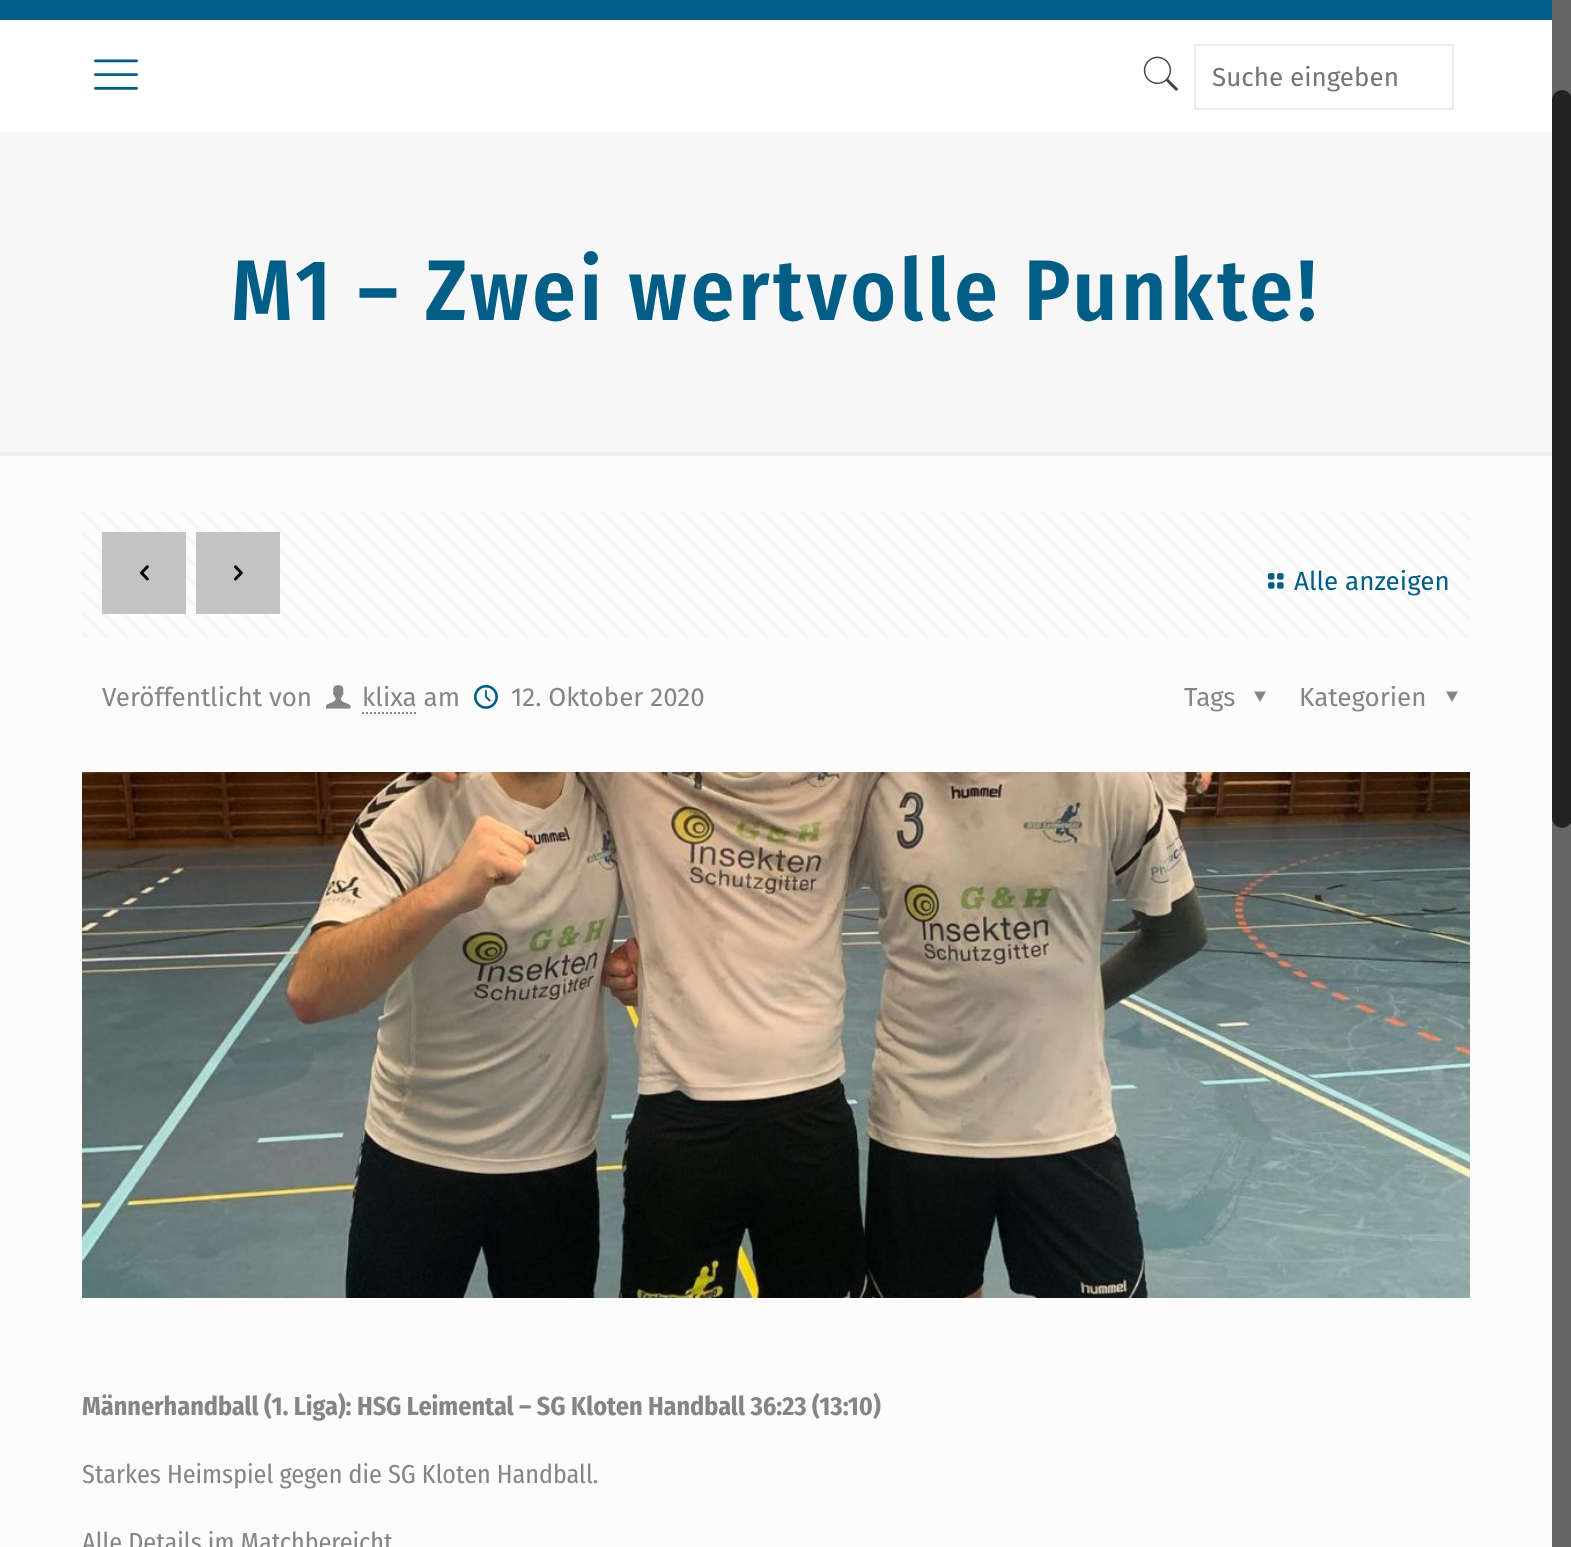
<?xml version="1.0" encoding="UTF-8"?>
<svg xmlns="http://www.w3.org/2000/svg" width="1571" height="1547">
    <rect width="100%" height="100%" fill="#FCFCFC"/>
    <rect x="0" y="0" width="1552" height="20" fill="#005D86"/>
    <rect x="0" y="20" width="1552" height="112" fill="#FFFFFF"/>
    <image x="94" y="59" width="44" height="31" href="img_01.png"/>
    <image x="1143" y="56" width="36" height="36" href="img_02.png"/>
    <rect x="1195" y="45" width="258" height="64" fill="none" stroke="#EBEBEB" stroke-width="2"/>
    <text x="1212" y="86" font-family="Fira Sans" font-size="26" fill="#757575">Suche eingeben</text>
    <rect x="0" y="132" width="1552" height="320" fill="#F7F7F7"/>
    <text x="231" y="320" font-family="Fira Sans Condensed" font-size="86" font-weight="600" letter-spacing="4" fill="#005D86">M1 – Zwei wertvolle Punkte!</text>
    <rect x="0" y="452" width="1552" height="4" fill="#EFEFEF"/>
    <image x="82" y="512" width="1388" height="126" href="img_03.png"/>
    <rect x="102" y="532" width="84" height="82" fill="#C3C3C3"/>
    <image x="140" y="565" width="9" height="16" href="img_04.png"/>
    <rect x="196" y="532" width="84" height="82" fill="#C3C3C3"/>
    <image x="234" y="565" width="9" height="16" href="img_05.png"/>
    <image x="1268" y="573" width="16" height="16" href="img_06.png"/>
    <text x="1294" y="590" font-family="Fira Sans" font-size="26" fill="#005D86">Alle anzeigen</text>
    <text x="102" y="706" font-family="Fira Sans" font-size="26" fill="#858585">Veröffentlicht von</text>
    <image x="326" y="685" width="25" height="24" href="img_07.png"/>
    <text x="362" y="706" font-family="Fira Sans" font-size="26" fill="#858585">klixa am</text>
    <path d="M 362 713 H 418" fill="none" stroke="#858585" stroke-width="2" stroke-dasharray="2 2"/>
    <image x="474" y="685" width="24" height="24" href="img_08.png"/>
    <text x="511" y="706" font-family="Fira Sans" font-size="26" fill="#858585">12. Oktober 2020</text>
    <text x="1184" y="706" font-family="Fira Sans" font-size="26" fill="#858585">Tags</text>
    <path d="M 1266 691.5 L 1260 702 L 1254 691.5 Z" fill="#858585"/>
    <text x="1299" y="706" font-family="Fira Sans" font-size="26" fill="#858585">Kategorien</text>
    <path d="M 1458 691.5 L 1452 702 L 1446 691.5 Z" fill="#858585"/>
    <image x="82" y="772" width="1388" height="526" href="img_09.png"/>
    <text x="82" y="1415" font-family="Fira Sans Condensed" font-size="26" font-weight="700" fill="#858585">Männerhandball (1. Liga): HSG Leimental – SG Kloten Handball 36:23 (13:10)</text>
    <text x="82" y="1483" font-family="Fira Sans Condensed" font-size="26" fill="#858585">Starkes Heimspiel gegen die SG Kloten Handball.</text>
    <text x="82" y="1551" font-family="Fira Sans Condensed" font-size="26" fill="#858585">Alle Details im Matchbereicht</text>
    <rect x="1552" y="0" width="19" height="1547" fill="#666666"/>
    <rect x="1552" y="90" width="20" height="738" rx="10" fill="#222222"/>
</svg>
